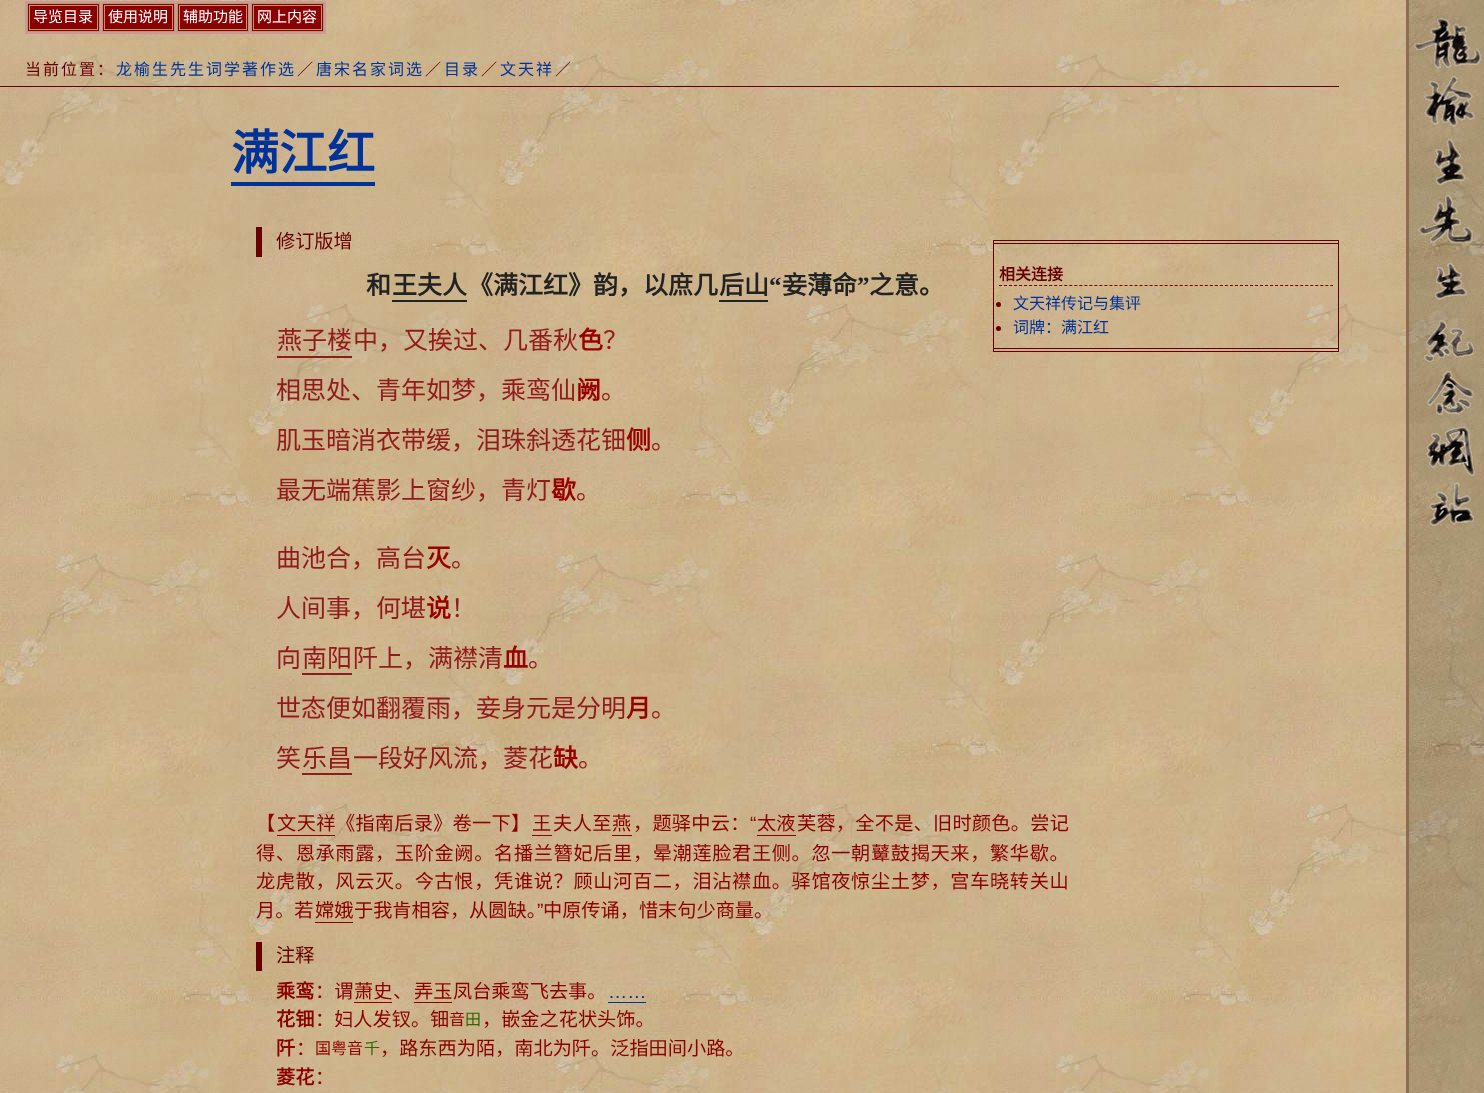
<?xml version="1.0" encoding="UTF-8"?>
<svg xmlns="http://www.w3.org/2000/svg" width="1484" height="1093">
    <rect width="100%" height="100%" fill="#FFFFFF"/>
    <image x="1409" y="0" width="75" height="1093" href="img_01.png"/>
    <image x="1414" y="18" width="67" height="508" href="img_02.png"/>
    <image x="0" y="0" width="1406" height="1093" href="img_03.png"/>
    <rect x="1406" y="0" width="3" height="1093" fill="#8E6C52"/>
    <rect x="25" y="1" width="301" height="33" fill="#CC9999"/>
    <rect x="27.5" y="3.5" width="72" height="28" fill="#8B0000" stroke="#BF936F"/>
    <rect x="29.5" y="5.5" width="68" height="24" fill="none" stroke="#BF936F"/>
    <text x="33" y="22" font-family="Noto Sans CJK SC" font-size="15" fill="#FFFFFF">导览目录</text>
    <rect x="102.5" y="3.5" width="72" height="28" fill="#8B0000" stroke="#BF936F"/>
    <rect x="104.5" y="5.5" width="68" height="24" fill="none" stroke="#BF936F"/>
    <text x="108" y="22" font-family="Noto Sans CJK SC" font-size="15" fill="#FFFFFF">使用说明</text>
    <rect x="177.5" y="3.5" width="71" height="28" fill="#8B0000" stroke="#BF936F"/>
    <rect x="179.5" y="5.5" width="67" height="24" fill="none" stroke="#BF936F"/>
    <text x="183" y="22" font-family="Noto Sans CJK SC" font-size="15" fill="#FFFFFF">辅助功能</text>
    <rect x="251.5" y="3.5" width="72" height="28" fill="#8B0000" stroke="#BF936F"/>
    <rect x="253.5" y="5.5" width="68" height="24" fill="none" stroke="#BF936F"/>
    <text x="257" y="22" font-family="Noto Sans CJK SC" font-size="15" fill="#FFFFFF">网上内容</text>
    <rect x="0" y="86" width="1339" height="1" fill="#640000"/>
    <text x="25" y="75" font-family="Noto Sans CJK SC" font-size="16" letter-spacing="2" fill="#660000">当前位置：</text>
    <text x="116" y="75" font-family="Noto Sans CJK SC" font-size="16" letter-spacing="2" fill="#003399">龙榆生先生词学著作选</text>
    <text x="297" y="75" font-family="Noto Sans CJK SC" font-size="16" letter-spacing="2" fill="#660000">／</text>
    <text x="316" y="75" font-family="Noto Sans CJK SC" font-size="16" letter-spacing="2" fill="#003399">唐宋名家词选</text>
    <text x="425" y="75" font-family="Noto Sans CJK SC" font-size="16" letter-spacing="2" fill="#660000">／</text>
    <text x="444" y="75" font-family="Noto Sans CJK SC" font-size="16" letter-spacing="2" fill="#003399">目录</text>
    <text x="481" y="75" font-family="Noto Sans CJK SC" font-size="16" letter-spacing="2" fill="#660000">／</text>
    <text x="500" y="75" font-family="Noto Sans CJK SC" font-size="16" letter-spacing="2" fill="#003399">文天祥</text>
    <text x="555" y="75" font-family="Noto Sans CJK SC" font-size="16" letter-spacing="2" fill="#660000">／</text>
    <text x="231" y="170" font-family="Noto Sans CJK SC" font-size="48" font-weight="700" fill="#003399">满江红</text>
    <rect x="231" y="182" width="144" height="4" fill="#003399"/>
    <rect x="256" y="227" width="6" height="30" fill="#660000"/>
    <text x="276" y="248" font-family="Noto Sans CJK SC" font-size="19.2" fill="#660000">修订版增</text>
    <text x="366" y="294" font-family="Noto Sans CJK SC" font-size="25" font-weight="700" fill="#222222">和</text>
    <text x="392" y="294" font-family="Noto Sans CJK SC" font-size="25" font-weight="700" fill="#222222">王夫人</text>
    <rect x="392" y="300" width="75" height="2" fill="#222222"/>
    <text x="468" y="294" font-family="Noto Sans CJK SC" font-size="25" font-weight="700" fill="#222222">《满江红》韵，以庶几</text>
    <text x="719" y="294" font-family="Noto Sans CJK SC" font-size="25" font-weight="700" fill="#222222">后山</text>
    <rect x="719" y="300" width="49" height="2" fill="#222222"/>
    <text x="769" y="294" font-family="Liberation Serif" font-size="25" font-weight="700" fill="#222222">“</text>
    <text x="782" y="294" font-family="Noto Sans CJK SC" font-size="25" font-weight="700" fill="#222222">妾薄命</text>
    <text x="857" y="294" font-family="Liberation Serif" font-size="25" font-weight="700" fill="#222222">”</text>
    <text x="869" y="294" font-family="Noto Sans CJK SC" font-size="25" font-weight="700" fill="#222222">之意。</text>
    <text x="277" y="349" font-family="Noto Sans CJK SC" font-size="25" fill="#911B1B">燕子楼</text>
    <rect x="277" y="356" width="75" height="2" fill="#911B1B"/>
    <text x="353" y="349" font-family="Noto Sans CJK SC" font-size="25" fill="#911B1B">中，又挨过、几番秋</text>
    <text x="578" y="349" font-family="Noto Sans CJK SC" font-size="25" font-weight="700" fill="#990000">色</text>
    <text x="603" y="349" font-family="Noto Sans CJK SC" font-size="25" fill="#911B1B">？</text>
    <text x="276" y="399" font-family="Noto Sans CJK SC" font-size="25" fill="#911B1B">相思处、青年如梦，乘鸾仙</text>
    <text x="576" y="399" font-family="Noto Sans CJK SC" font-size="25" font-weight="700" fill="#990000">阙</text>
    <text x="601" y="399" font-family="Noto Sans CJK SC" font-size="25" fill="#911B1B">。</text>
    <text x="276" y="449" font-family="Noto Sans CJK SC" font-size="25" fill="#911B1B">肌玉暗消衣带缓，泪珠斜透花钿</text>
    <text x="626" y="449" font-family="Noto Sans CJK SC" font-size="25" font-weight="700" fill="#990000">侧</text>
    <text x="651" y="449" font-family="Noto Sans CJK SC" font-size="25" fill="#911B1B">。</text>
    <text x="276" y="499" font-family="Noto Sans CJK SC" font-size="25" fill="#911B1B">最无端蕉影上窗纱，青灯</text>
    <text x="551" y="499" font-family="Noto Sans CJK SC" font-size="25" font-weight="700" fill="#990000">歇</text>
    <text x="576" y="499" font-family="Noto Sans CJK SC" font-size="25" fill="#911B1B">。</text>
    <text x="276" y="567" font-family="Noto Sans CJK SC" font-size="25" fill="#911B1B">曲池合，高台</text>
    <text x="426" y="567" font-family="Noto Sans CJK SC" font-size="25" font-weight="700" fill="#990000">灭</text>
    <text x="451" y="567" font-family="Noto Sans CJK SC" font-size="25" fill="#911B1B">。</text>
    <text x="276" y="617" font-family="Noto Sans CJK SC" font-size="25" fill="#911B1B">人间事，何堪</text>
    <text x="426" y="617" font-family="Noto Sans CJK SC" font-size="25" font-weight="700" fill="#990000">说</text>
    <text x="451" y="617" font-family="Noto Sans CJK SC" font-size="25" fill="#911B1B">！</text>
    <text x="276" y="667" font-family="Noto Sans CJK SC" font-size="25" fill="#911B1B">向</text>
    <text x="302" y="667" font-family="Noto Sans CJK SC" font-size="25" fill="#911B1B">南阳</text>
    <rect x="302" y="673" width="50" height="2" fill="#911B1B"/>
    <text x="353" y="667" font-family="Noto Sans CJK SC" font-size="25" fill="#911B1B">阡上，满襟清</text>
    <text x="503" y="667" font-family="Noto Sans CJK SC" font-size="25" font-weight="700" fill="#990000">血</text>
    <text x="528" y="667" font-family="Noto Sans CJK SC" font-size="25" fill="#911B1B">。</text>
    <text x="276" y="717" font-family="Noto Sans CJK SC" font-size="25" fill="#911B1B">世态便如翻覆雨，妾身元是分明</text>
    <text x="626" y="717" font-family="Noto Sans CJK SC" font-size="25" font-weight="700" fill="#990000">月</text>
    <text x="651" y="717" font-family="Noto Sans CJK SC" font-size="25" fill="#911B1B">。</text>
    <text x="276" y="767" font-family="Noto Sans CJK SC" font-size="25" fill="#911B1B">笑</text>
    <text x="302" y="767" font-family="Noto Sans CJK SC" font-size="25" fill="#911B1B">乐昌</text>
    <rect x="302" y="773" width="50" height="2" fill="#911B1B"/>
    <text x="353" y="767" font-family="Noto Sans CJK SC" font-size="25" fill="#911B1B">一段好风流，菱花</text>
    <text x="553" y="767" font-family="Noto Sans CJK SC" font-size="25" font-weight="700" fill="#990000">缺</text>
    <text x="578" y="767" font-family="Noto Sans CJK SC" font-size="25" fill="#911B1B">。</text>
    <text x="256" y="830" font-family="Noto Sans CJK SC" font-size="19.2" fill="#8B0000">【</text>
    <text x="277" y="830" font-family="Noto Sans CJK SC" font-size="19.2" letter-spacing="0.5" fill="#8B0000">文天祥</text>
    <rect x="277" y="835" width="58" height="1" fill="#8B0000"/>
    <text x="336" y="830" font-family="Noto Sans CJK SC" font-size="19.2" letter-spacing="0.25" fill="#8B0000">《指南后录》卷一下】</text>
    <text x="532" y="830" font-family="Noto Sans CJK SC" font-size="19.2" fill="#8B0000">王</text>
    <rect x="532" y="835" width="20" height="1" fill="#8B0000"/>
    <text x="553" y="830" font-family="Noto Sans CJK SC" font-size="19.2" letter-spacing="0.5" fill="#8B0000">夫人至</text>
    <text x="612" y="830" font-family="Noto Sans CJK SC" font-size="19.2" fill="#8B0000">燕</text>
    <rect x="612" y="835" width="20" height="1" fill="#8B0000"/>
    <text x="633" y="830" font-family="Noto Sans CJK SC" font-size="19.2" letter-spacing="0.25" fill="#8B0000">，题驿中云：</text>
    <text x="750" y="830" font-family="Liberation Sans" font-size="19.2" letter-spacing="0.25" fill="#8B0000">“</text>
    <text x="757" y="830" font-family="Noto Sans CJK SC" font-size="19.2" fill="#8B0000">太液</text>
    <rect x="757" y="835" width="39" height="1" fill="#8B0000"/>
    <text x="797" y="830" font-family="Noto Sans CJK SC" font-size="19.2" letter-spacing="0.25" fill="#8B0000">芙蓉，全不是、旧时颜色。尝记</text>
    <text font-family="Noto Sans CJK SC" font-size="19.2" letter-spacing="0.65" fill="#8B0000">
        <tspan x="256" y="860">得、恩承雨露，玉阶金阙。名播兰簪妃后里，晕潮莲脸君王侧。忽一朝鼙鼓揭天来，繁华歇。</tspan>
        <tspan x="256" y="888">龙虎散，风云灭。今古恨，凭谁说？顾山河百二，泪沾襟血。驿馆夜惊尘土梦，宫车晓转关山</tspan>
    </text>
    <text x="256" y="917" font-family="Noto Sans CJK SC" font-size="19.2" fill="#8B0000">月。若</text>
    <text x="315" y="917" font-family="Noto Sans CJK SC" font-size="19.2" fill="#8B0000">嫦娥</text>
    <rect x="315" y="922" width="38" height="1" fill="#8B0000"/>
    <text x="354" y="917" font-family="Noto Sans CJK SC" font-size="19.2" fill="#8B0000">于我肯相容，从圆缺。</text>
    <text x="537" y="917" font-family="Liberation Sans" font-size="19.2" fill="#8B0000">”</text>
    <text x="543" y="917" font-family="Noto Sans CJK SC" font-size="19.2" fill="#8B0000">中原传诵，惜末句少商量。</text>
    <rect x="256" y="942" width="6" height="29" fill="#660000"/>
    <text x="276" y="962" font-family="Noto Sans CJK SC" font-size="19.2" fill="#660000">注释</text>
    <text x="276" y="998" font-family="Noto Sans CJK SC" font-size="19.2" font-weight="700" fill="#8B0000">乘鸾</text>
    <text x="315" y="998" font-family="Noto Sans CJK SC" font-size="19.2" fill="#8B0000">：谓</text>
    <text x="354" y="998" font-family="Noto Sans CJK SC" font-size="19.2" fill="#8B0000">萧史</text>
    <rect x="354" y="1002" width="38" height="1" fill="#8B0000"/>
    <text x="393" y="998" font-family="Noto Sans CJK SC" font-size="19.2" fill="#8B0000">、</text>
    <text x="414" y="998" font-family="Noto Sans CJK SC" font-size="19.2" fill="#8B0000">弄玉</text>
    <rect x="414" y="1002" width="38" height="1" fill="#8B0000"/>
    <text x="453" y="998" font-family="Noto Sans CJK SC" font-size="19.2" fill="#8B0000">凤台乘鸾飞去事。</text>
    <text x="608" y="998" font-family="Liberation Sans" font-size="19.2" fill="#003399">……</text>
    <rect x="608" y="1002" width="38" height="1" fill="#003399"/>
    <text x="276" y="1026" font-family="Noto Sans CJK SC" font-size="19.2" font-weight="700" fill="#8B0000">花钿</text>
    <text x="315" y="1026" font-family="Noto Sans CJK SC" font-size="19.2" fill="#8B0000">：妇人发钗。钿</text>
    <text x="449" y="1025" font-family="Noto Sans CJK SC" font-size="16" fill="#8B0000">音</text>
    <text x="465" y="1025" font-family="Noto Sans CJK SC" font-size="16" fill="#336600">田</text>
    <text x="482" y="1026" font-family="Noto Sans CJK SC" font-size="19.2" fill="#8B0000">，嵌金之花状头饰。</text>
    <text x="276" y="1055" font-family="Noto Sans CJK SC" font-size="19.2" font-weight="700" fill="#8B0000">阡</text>
    <text x="296" y="1055" font-family="Noto Sans CJK SC" font-size="19.2" fill="#8B0000">：</text>
    <text x="315" y="1054" font-family="Noto Sans CJK SC" font-size="16" fill="#8B0000">国粤音</text>
    <text x="364" y="1054" font-family="Noto Sans CJK SC" font-size="16" fill="#336600">千</text>
    <text x="380" y="1055" font-family="Noto Sans CJK SC" font-size="19.2" fill="#8B0000">，路东西为陌，南北为阡。泛指田间小路。</text>
    <text x="276" y="1084" font-family="Noto Sans CJK SC" font-size="19.2" font-weight="700" fill="#8B0000">菱花</text>
    <text x="315" y="1084" font-family="Noto Sans CJK SC" font-size="19.2" fill="#8B0000">：</text>
    <rect x="993" y="240" width="346" height="1" fill="#640000"/>
    <rect x="993" y="243" width="346" height="1" fill="#640000"/>
    <rect x="1338" y="240" width="1" height="112" fill="#640000"/>
    <rect x="993" y="348" width="346" height="1" fill="#640000"/>
    <rect x="993" y="351" width="346" height="1" fill="#640000"/>
    <rect x="993" y="240" width="1" height="112" fill="#640000"/>
    <path d="M 999 285.5 H 1333" fill="none" stroke="#800000" stroke-dasharray="3 2.02"/>
    <text x="999" y="280" font-family="Noto Sans CJK SC" font-size="16" font-weight="700" fill="#660000">相关连接</text>
    <circle cx="998.5" cy="304.5" r="2.5" fill="#640000"/>
    <text x="1013" y="309" font-family="Noto Sans CJK SC" font-size="16" fill="#003399">文天祥传记与集评</text>
    <circle cx="998.5" cy="328.5" r="2.5" fill="#640000"/>
    <text x="1013" y="333" font-family="Noto Sans CJK SC" font-size="16" fill="#003399">词牌：满江红</text>
</svg>
